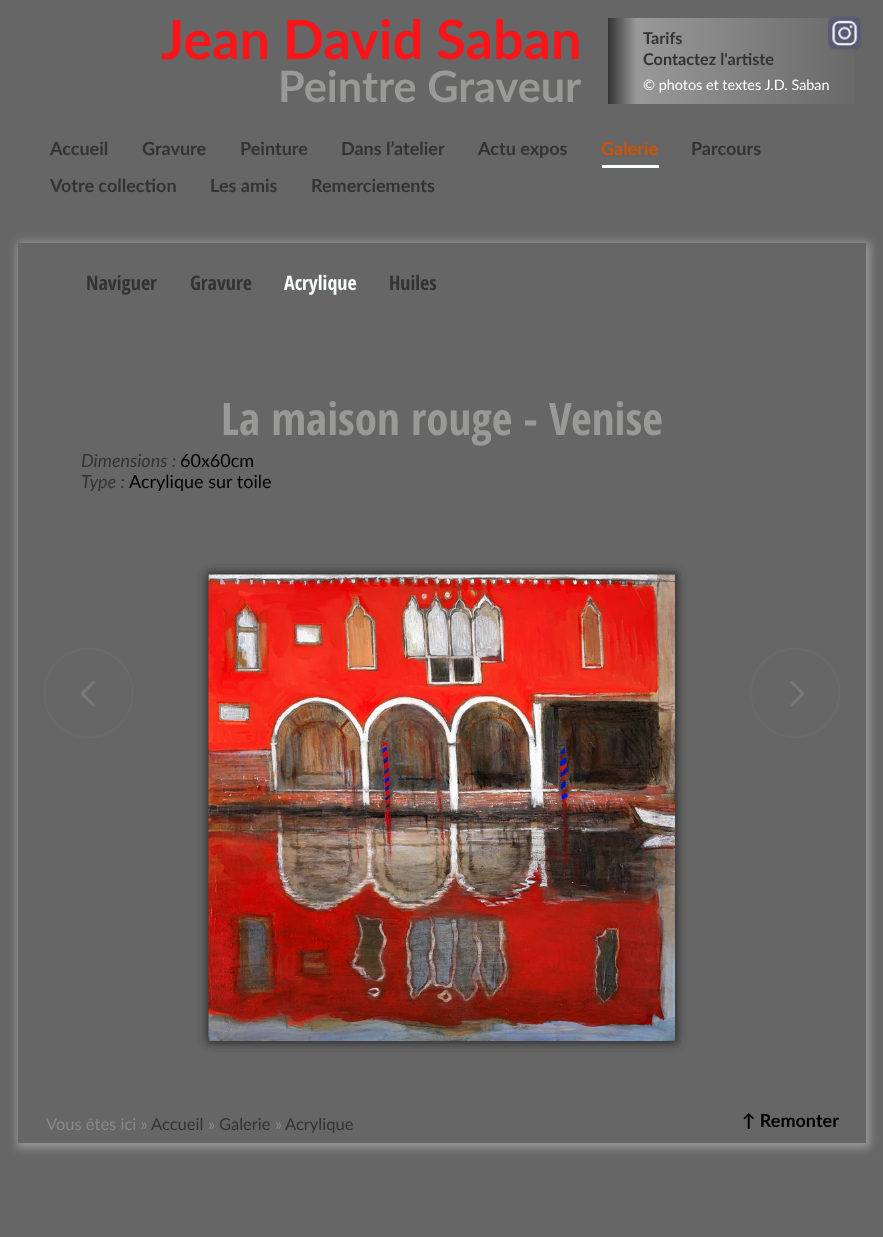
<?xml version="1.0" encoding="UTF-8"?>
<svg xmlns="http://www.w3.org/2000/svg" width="883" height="1237">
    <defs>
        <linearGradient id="g1" gradientUnits="userSpaceOnUse" x1="608" y1="61" x2="866" y2="61"><stop offset="0" stop-color="#333333"/><stop offset="0.11" stop-color="#999999"/><stop offset="1" stop-color="#666666"/></linearGradient>
        <clipPath id="clip1"><path d="M 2 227 H 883 V 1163 H 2 Z M 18 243 H 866 V 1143 H 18 Z" clip-rule="evenodd"/></clipPath>
        <filter id="blur1" x="-50%" y="-200%" width="200%" height="500%"><feGaussianBlur stdDeviation="4.5"/></filter>
    </defs>
    <rect width="100%" height="100%" fill="#666666"/>
    <text x="161" y="59" font-family="Lato" font-size="54" font-weight="700" fill="#FD1418">Jean David Saban</text>
    <text x="278" y="102" font-family="Lato" font-size="43.25" font-weight="700" fill="#999997">Peintre Graveur</text>
    <rect x="608" y="18" width="247" height="86" fill="url(#g1)"/>
    <text font-family="Lato" font-size="16.25" font-weight="700" fill="#333333">
        <tspan x="643" y="44">Tarifs</tspan>
        <tspan x="643" y="65">Contactez l'artiste</tspan>
    </text>
    <text x="643" y="90" font-family="Lato" font-size="14.4" fill="#FFFFFF">© photos et textes J.D. Saban</text>
    <image x="828" y="16" width="33" height="34" href="img_01.png"/>
    <text x="50" y="155" font-family="Lato" font-size="18" font-weight="700" fill="#333333">Accueil</text>
    <text x="142" y="155" font-family="Lato" font-size="18" font-weight="700" fill="#333333">Gravure</text>
    <text x="240" y="155" font-family="Lato" font-size="18" font-weight="700" fill="#333333">Peinture</text>
    <text x="341" y="155" font-family="Lato" font-size="18" font-weight="700" fill="#333333">Dans l’atelier</text>
    <text x="478" y="155" font-family="Lato" font-size="18" font-weight="700" fill="#333333">Actu expos</text>
    <rect x="602" y="165" width="57" height="3" fill="#F6FEFE"/>
    <text x="601" y="155" font-family="Lato" font-size="18" font-weight="700" fill="#CF5301">Galerie</text>
    <text x="691" y="155" font-family="Lato" font-size="18" font-weight="700" fill="#333333">Parcours</text>
    <text x="50" y="192" font-family="Lato" font-size="18" font-weight="700" fill="#333333">Votre collection</text>
    <text x="210" y="192" font-family="Lato" font-size="18" font-weight="700" fill="#333333">Les amis</text>
    <text x="311" y="192" font-family="Lato" font-size="18" font-weight="700" fill="#333333">Remerciements</text>
    <g clip-path="url(#clip1)">
        <rect x="17" y="242" width="853" height="906" fill="#999999" filter="url(#blur1)"/>
    </g>
    <text x="86" y="290" font-family="Open Sans Condensed" font-size="20" font-weight="700" fill="#333333">Naviguer</text>
    <text x="190" y="290" font-family="Open Sans Condensed" font-size="20" font-weight="700" fill="#333333">Gravure</text>
    <text x="284" y="290" font-family="Open Sans Condensed" font-size="20" font-weight="700" fill="#F6FEFE">Acrylique</text>
    <text x="389" y="290" font-family="Open Sans Condensed" font-size="20" font-weight="700" fill="#333333">Huiles</text>
    <text x="221" y="435" font-family="Open Sans Condensed" font-size="45" font-weight="700" fill="#999997">La maison rouge - Venise</text>
    <text x="81" y="467" font-family="Lato" font-size="18" font-style="italic" fill="#333333">Dimensions :</text>
    <text x="180" y="467" font-family="Lato" font-size="18" fill="#000000">60x60cm</text>
    <text x="81" y="488" font-family="Lato" font-size="18" font-style="italic" fill="#333333">Type :</text>
    <text x="129" y="488" font-family="Lato" font-size="18" fill="#000000">Acrylique sur toile</text>
    <rect x="206" y="572" width="472" height="472" fill="#333333" filter="url(#blur1)"/>
    <image x="208" y="574" width="467" height="467" href="img_02.png"/>
    <image x="44" y="648" width="89" height="90" href="img_03.png"/>
    <image x="750" y="648" width="90" height="90" href="img_04.png"/>
    <text x="46" y="1130" font-family="Lato" font-size="16.5" fill="#888888">Vous êtes ici »</text>
    <text x="151" y="1130" font-family="Lato" font-size="16.5" fill="#333333">Accueil</text>
    <text x="208" y="1130" font-family="Lato" font-size="16.5" fill="#888888">»</text>
    <text x="219" y="1130" font-family="Lato" font-size="16.5" fill="#333333">Galerie</text>
    <text x="275" y="1130" font-family="Lato" font-size="16.5" fill="#888888">»</text>
    <text x="285" y="1130" font-family="Lato" font-size="16.5" fill="#333333">Acrylique</text>
    <text x="742" y="1127" font-family="Lato" font-size="18" font-weight="700" fill="#000000">↑ Remonter</text>
</svg>
